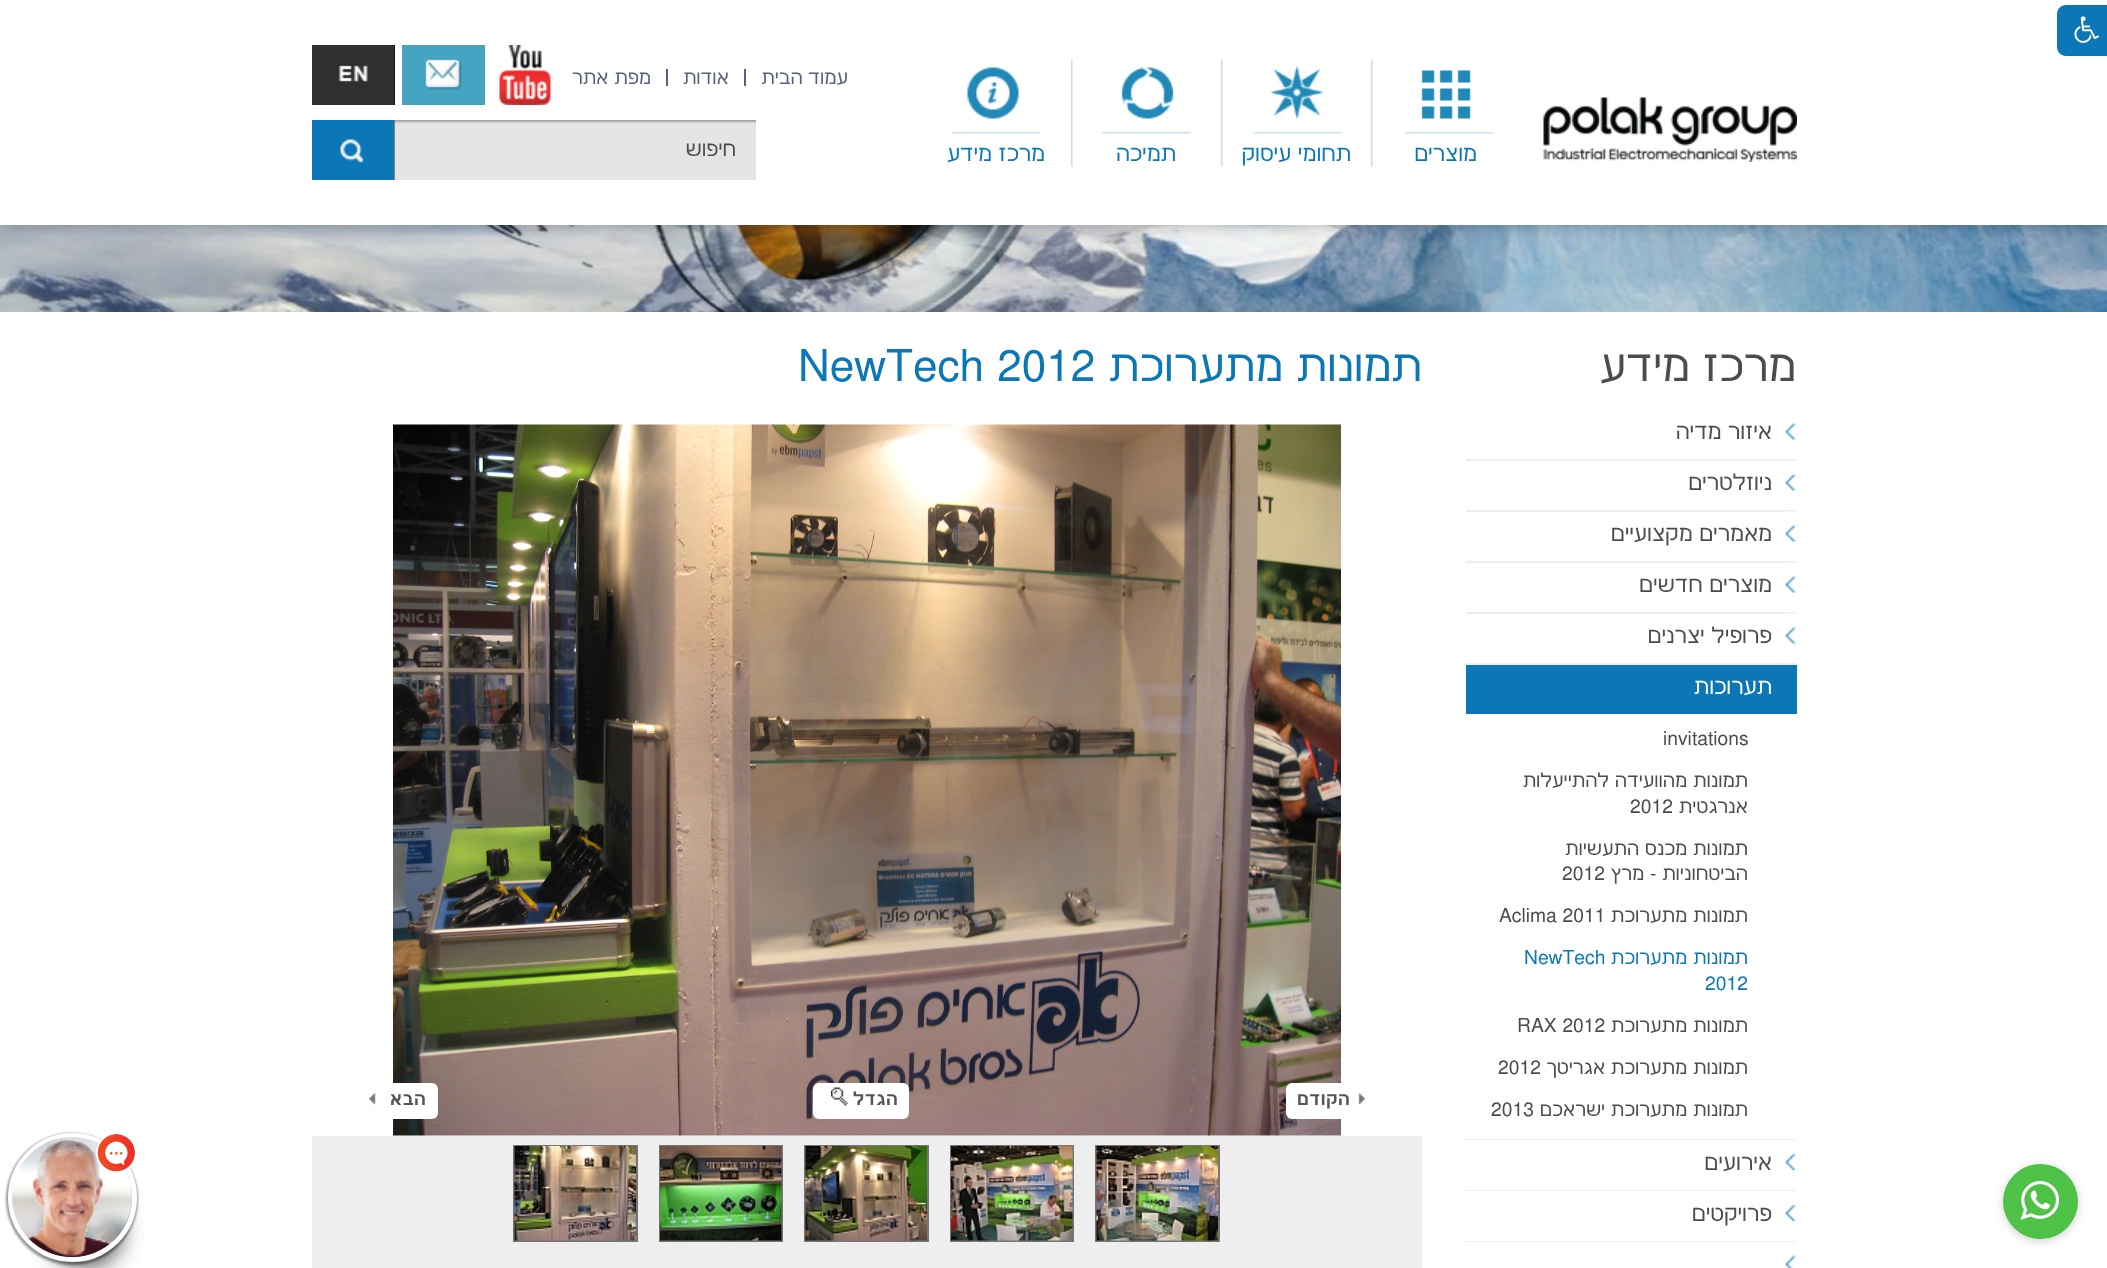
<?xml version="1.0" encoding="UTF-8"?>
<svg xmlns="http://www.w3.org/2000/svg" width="2107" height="1268">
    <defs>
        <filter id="blur1" x="-50%" y="-200%" width="200%" height="500%"><feGaussianBlur stdDeviation="5"/></filter>
        <filter id="blur2" x="-50%" y="-200%" width="200%" height="500%"><feGaussianBlur stdDeviation="7.5"/></filter>
        <filter id="blur3" x="-50%" y="-200%" width="200%" height="500%"><feGaussianBlur stdDeviation="10.5"/></filter>
        <filter id="blur4" x="-50%" y="-200%" width="200%" height="500%"><feGaussianBlur stdDeviation="1"/></filter>
    </defs>
    <rect width="100%" height="100%" fill="#FFFFFF"/>
    <rect x="2003" y="1166" width="75" height="75" rx="37.5" fill="#888888" fill-opacity="0.4" filter="url(#blur1)"/>
    <circle cx="2040.5" cy="1201.5" r="37.5" fill="#4DC247"/>
    <image x="2020" y="1181" width="40" height="39" href="img_01.png"/>
    <image x="0" y="225" width="2107" height="87" href="img_15.png"/>
    <rect x="0" y="0" width="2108" height="225" fill="#000000" fill-opacity="0.3" filter="url(#blur2)"/>
    <rect x="0" y="0" width="2107" height="225" fill="#FFFFFF"/>
    <path d="M 2066 5 H 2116 V 56 H 2066 C 2061 56 2057 52 2057 47 V 14 C 2057 9 2061 5 2066 5 Z" fill="#0B77B6"/>
    <image x="2074" y="16" width="25" height="27" href="img_02.png"/>
    <image x="1543" y="97" width="254" height="65" href="img_03.png"/>
    <image x="1404" y="70" width="91" height="64" href="img_04.png"/>
    <text x="1477" y="161" font-family="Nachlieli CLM" font-size="24" font-weight="300" direction="rtl" fill="#0B77B6">מוצרים</text>
    <image x="1371" y="58" width="2" height="110" href="img_05.png"/>
    <image x="1252" y="65" width="91" height="69" href="img_06.png"/>
    <text x="1351" y="161" font-family="Nachlieli CLM" font-size="24" font-weight="300" direction="rtl" fill="#0B77B6">תחומי עיסוק</text>
    <image x="1221" y="58" width="2" height="109" href="img_07.png"/>
    <image x="1101" y="67" width="91" height="67" href="img_08.png"/>
    <text x="1176" y="161" font-family="Nachlieli CLM" font-size="24" font-weight="300" direction="rtl" fill="#0B77B6">תמיכה</text>
    <image x="1071" y="58" width="2" height="110" href="img_05.png"/>
    <image x="951" y="67" width="91" height="67" href="img_09.png"/>
    <text x="1045" y="161" font-family="Nachlieli CLM" font-size="24" font-weight="300" direction="rtl" fill="#0B77B6">מרכז מידע</text>
    <text x="848" y="84" font-family="Nachlieli CLM" font-size="21" font-weight="300" direction="rtl" fill="#57617A">עמוד הבית</text>
    <rect x="744" y="69" width="2" height="17" fill="#57617A"/>
    <text x="729" y="84" font-family="Nachlieli CLM" font-size="21" font-weight="300" direction="rtl" fill="#57617A">אודות</text>
    <rect x="666" y="69" width="2" height="17" fill="#57617A"/>
    <text x="651" y="84" font-family="Nachlieli CLM" font-size="21" font-weight="300" direction="rtl" fill="#57617A">מפת אתר</text>
    <image x="499" y="45" width="52" height="60" href="img_10.png"/>
    <rect x="402" y="45" width="83" height="60" fill="#45A4C2"/>
    <image x="425" y="59" width="37" height="31" href="img_11.png"/>
    <rect x="394" y="45" width="1" height="60" fill="#000000"/>
    <image x="312" y="45" width="83" height="60" href="img_12.png"/>
    <image x="395" y="120" width="361" height="60" href="img_13.png"/>
    <text x="736" y="156" font-family="Nachlieli CLM" font-size="22.5" font-weight="300" direction="rtl" fill="#4C4C4C">חיפוש</text>
    <rect x="394" y="120" width="1" height="60" fill="#FF8C37"/>
    <image x="312" y="120" width="83" height="60" href="img_14.png"/>
    <text x="1796" y="381" font-family="Nachlieli CLM" font-size="48" font-weight="300" direction="rtl" fill="#4C4C4C">מרכז מידע</text>
    <rect x="1466" y="459" width="331" height="2" fill="#EEEEEE"/>
    <image x="1785" y="422" width="11" height="18" href="img_16.png"/>
    <text x="1772" y="439" font-family="Nachlieli CLM" font-size="24" font-weight="300" direction="rtl" fill="#4C4C4C">איזור מדיה</text>
    <rect x="1466" y="510" width="331" height="2" fill="#EEEEEE"/>
    <image x="1785" y="460" width="12" height="31" href="img_17.png"/>
    <text x="1772" y="490" font-family="Nachlieli CLM" font-size="24" font-weight="300" direction="rtl" fill="#4C4C4C">ניוזלטרים</text>
    <rect x="1466" y="561" width="331" height="2" fill="#EEEEEE"/>
    <image x="1785" y="511" width="12" height="31" href="img_17.png"/>
    <text x="1772" y="541" font-family="Nachlieli CLM" font-size="24" font-weight="300" direction="rtl" fill="#4C4C4C">מאמרים מקצועיים</text>
    <rect x="1466" y="612" width="331" height="2" fill="#EEEEEE"/>
    <image x="1785" y="562" width="12" height="31" href="img_17.png"/>
    <text x="1772" y="592" font-family="Nachlieli CLM" font-size="24" font-weight="300" direction="rtl" fill="#4C4C4C">מוצרים חדשים</text>
    <rect x="1466" y="663" width="331" height="2" fill="#EEEEEE"/>
    <image x="1785" y="613" width="12" height="31" href="img_17.png"/>
    <text x="1772" y="643" font-family="Nachlieli CLM" font-size="24" font-weight="300" direction="rtl" fill="#4C4C4C">פרופיל יצרנים</text>
    <rect x="1466" y="1139" width="331" height="1" fill="#EEEEEE"/>
    <rect x="1466" y="665" width="331" height="49" fill="#0B77B6"/>
    <text x="1772" y="694" font-family="Nachlieli CLM" font-size="24" font-weight="300" direction="rtl" fill="#FFFFFF">תערוכות</text>
    <text x="1663" y="745" font-family="Nachlieli CLM" font-size="21" font-weight="300" fill="#4C4C4C">invitations</text>
    <text font-family="Nachlieli CLM" font-size="21" font-weight="300" direction="rtl" fill="#4C4C4C">
        <tspan x="1748" y="787">תמונות מהוועידה להתייעלות</tspan>
        <tspan x="1748" y="813">אנרגטית</tspan>
    </text>
    <text x="1630" y="813" font-family="Nachlieli CLM" font-size="21" font-weight="300" fill="#4C4C4C">2012</text>
    <text font-family="Nachlieli CLM" font-size="21" font-weight="300" direction="rtl" fill="#4C4C4C">
        <tspan x="1748" y="855">תמונות מכנס התעשיות</tspan>
        <tspan x="1748" y="880">הביטחוניות - מרץ</tspan>
    </text>
    <text x="1562" y="880" font-family="Nachlieli CLM" font-size="21" font-weight="300" fill="#4C4C4C">2012</text>
    <text x="1748" y="922" font-family="Nachlieli CLM" font-size="21" font-weight="300" direction="rtl" fill="#4C4C4C">תמונות מתערוכת</text>
    <text x="1499" y="922" font-family="Nachlieli CLM" font-size="21" font-weight="300" fill="#4C4C4C">Aclima 2011</text>
    <text x="1748" y="964" font-family="Nachlieli CLM" font-size="21" font-weight="300" direction="rtl" fill="#0B77B6">תמונות מתערוכת</text>
    <text x="1524" y="964" font-family="Nachlieli CLM" font-size="21" font-weight="300" fill="#0B77B6">NewTech</text>
    <text x="1705" y="990" font-family="Nachlieli CLM" font-size="21" font-weight="300" fill="#0B77B6">2012</text>
    <text x="1748" y="1032" font-family="Nachlieli CLM" font-size="21" font-weight="300" direction="rtl" fill="#4C4C4C">תמונות מתערוכת</text>
    <text x="1517" y="1032" font-family="Nachlieli CLM" font-size="21" font-weight="300" fill="#4C4C4C">RAX 2012</text>
    <text x="1748" y="1074" font-family="Nachlieli CLM" font-size="21" font-weight="300" direction="rtl" fill="#4C4C4C">תמונות מתערוכת אגריטך</text>
    <text x="1498" y="1074" font-family="Nachlieli CLM" font-size="21" font-weight="300" fill="#4C4C4C">2012</text>
    <text x="1748" y="1116" font-family="Nachlieli CLM" font-size="21" font-weight="300" direction="rtl" fill="#4C4C4C">תמונות מתערוכת ישראכם</text>
    <text x="1491" y="1116" font-family="Nachlieli CLM" font-size="21" font-weight="300" fill="#4C4C4C">2013</text>
    <rect x="1466" y="1190" width="331" height="1" fill="#EEEEEE"/>
    <image x="1785" y="1153" width="11" height="17" href="img_18.png"/>
    <text x="1772" y="1170" font-family="Nachlieli CLM" font-size="24" font-weight="300" direction="rtl" fill="#4C4C4C">אירועים</text>
    <rect x="1466" y="1241" width="331" height="1" fill="#EEEEEE"/>
    <image x="1785" y="1204" width="11" height="17" href="img_18.png"/>
    <text x="1772" y="1221" font-family="Nachlieli CLM" font-size="24" font-weight="300" direction="rtl" fill="#4C4C4C">פרויקטים</text>
    <image x="1785" y="1255" width="11" height="13" href="img_19.png"/>
    <text x="1422" y="381" font-family="Nachlieli CLM" font-size="48" font-weight="300" direction="rtl" fill="#0B77B6">תמונות מתערוכת</text>
    <text x="798" y="381" font-family="Nachlieli CLM" font-size="48" font-weight="300" fill="#0B77B6">NewTech 2012</text>
    <image x="393" y="424" width="948" height="712" href="img_20.png"/>
    <rect x="1286" y="1083" width="91" height="36" rx="6" fill="#FFFFFF"/>
    <image x="1358" y="1093" width="7" height="12" href="img_21.png"/>
    <text x="1350" y="1105" font-family="Nachlieli CLM" font-size="19.5" font-weight="700" direction="rtl" fill="#555555">הקודם</text>
    <rect x="813" y="1083" width="96" height="36" rx="6" fill="#FFFFFF"/>
    <text x="898" y="1105" font-family="Nachlieli CLM" font-size="19.5" font-weight="700" direction="rtl" fill="#555555">הגדל</text>
    <image x="831" y="1087" width="17" height="19" href="img_22.png"/>
    <rect x="357" y="1083" width="81" height="36" rx="6" fill="#FFFFFF"/>
    <text x="426" y="1105" font-family="Nachlieli CLM" font-size="19.5" font-weight="700" direction="rtl" fill="#555555">הבא</text>
    <image x="369" y="1093" width="7" height="12" href="img_23.png"/>
    <rect x="312" y="1136" width="1110" height="132" fill="#EEEEEE"/>
    <rect x="1096" y="1146" width="123" height="95" fill="none" stroke="#757575" stroke-width="2"/>
    <image x="1096" y="1146" width="122" height="95" href="img_24.png"/>
    <rect x="951" y="1146" width="122" height="95" fill="none" stroke="#757575" stroke-width="2"/>
    <image x="951" y="1146" width="122" height="95" href="img_25.png"/>
    <rect x="805" y="1146" width="123" height="95" fill="none" stroke="#757575" stroke-width="2"/>
    <image x="805" y="1146" width="122" height="95" href="img_26.png"/>
    <rect x="660" y="1146" width="122" height="95" fill="none" stroke="#757575" stroke-width="2"/>
    <image x="660" y="1146" width="122" height="95" href="img_27.png"/>
    <rect x="514" y="1146" width="123" height="95" fill="none" stroke="#757575" stroke-width="2"/>
    <image x="514" y="1146" width="122" height="95" href="img_28.png"/>
    <rect x="48" y="1193" width="75" height="75" rx="37.5" fill="#4D4D4D" fill-opacity="0.9" filter="url(#blur3)"/>
    <circle cx="79.5" cy="1224.5" r="37.5" fill="#FFFFFF"/>
    <rect x="6" y="1133" width="132" height="132" rx="66" fill="#000000" fill-opacity="0.4" filter="url(#blur4)"/>
    <circle cx="72.5" cy="1197.5" r="62" fill="none" stroke="#FFFFFF" stroke-width="5"/>
    <image x="12" y="1137" width="120" height="120" href="img_29.png"/>
    <rect x="97" y="1134" width="39" height="38" rx="19" fill="#FFFFFF" stroke="#FFFFFF" stroke-width="2"/>
    <image x="97" y="1134" width="38" height="38" href="img_30.png"/>
</svg>
